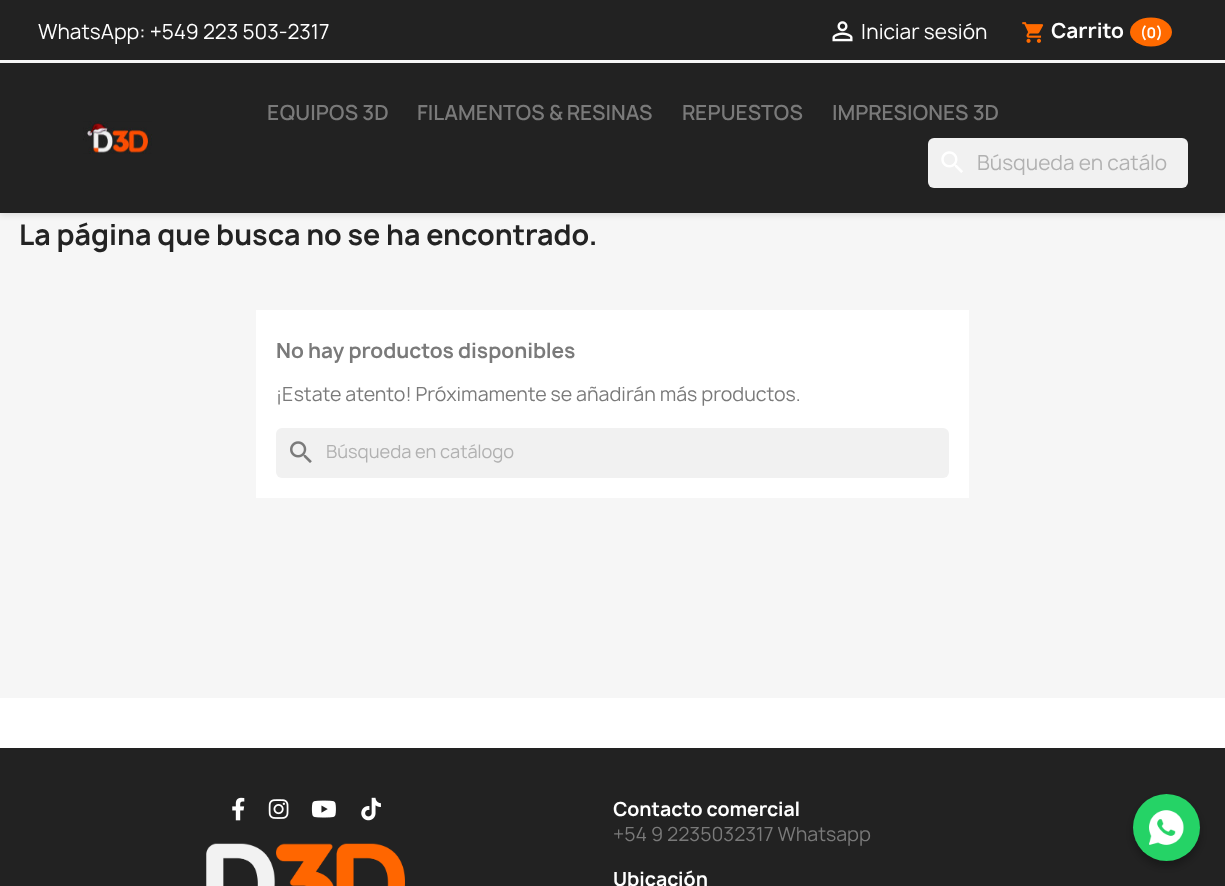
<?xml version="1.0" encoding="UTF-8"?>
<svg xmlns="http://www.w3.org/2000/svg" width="1225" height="886">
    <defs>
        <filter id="blur1" x="-50%" y="-200%" width="200%" height="500%"><feGaussianBlur stdDeviation="3"/></filter>
        <filter id="blur2" x="-50%" y="-200%" width="200%" height="500%"><feGaussianBlur stdDeviation="5"/></filter>
    </defs>
    <rect width="100%" height="100%" fill="#FFFFFF"/>
    <rect x="0" y="213" width="1225" height="485" fill="#F6F6F6"/>
    <rect x="0" y="3" width="1225" height="212" fill="#000000" fill-opacity="0.11" filter="url(#blur1)"/>
    <rect x="0" y="0" width="1225" height="60" fill="#222222"/>
    <rect x="0" y="60" width="1225" height="3" fill="#F6F6F6"/>
    <text x="38" y="39" font-family="Manrope" font-size="20" fill="#FFFFFF">WhatsApp: +549 223 503-2317</text>
    <image x="832" y="21" width="21" height="21" href="img_01.png"/>
    <text x="861" y="39" font-family="Manrope" font-size="20" fill="#FFFFFF">Iniciar sesión</text>
    <image x="1022" y="22" width="22" height="21" href="img_02.png"/>
    <text x="1051" y="38" font-family="Manrope" font-size="20" font-weight="700" fill="#FFFFFF">Carrito</text>
    <ellipse cx="1151" cy="32" rx="21" ry="14.5" fill="#FF6A00"/>
    <text x="1140" y="38" font-family="Manrope" font-size="14" font-weight="700" fill="#FFFFFF">(0)</text>
    <rect x="0" y="63" width="1225" height="150" fill="#222222"/>
    <image x="83" y="121" width="69" height="33" href="img_03.png"/>
    <text x="267" y="120" font-family="Manrope" font-size="20" font-weight="600" fill="#7A7A7A">EQUIPOS 3D</text>
    <text x="417" y="120" font-family="Manrope" font-size="20" font-weight="600" fill="#7A7A7A">FILAMENTOS &amp; RESINAS</text>
    <text x="682" y="120" font-family="Manrope" font-size="20" font-weight="600" fill="#7A7A7A">REPUESTOS</text>
    <text x="832" y="120" font-family="Manrope" font-size="20" font-weight="600" fill="#7A7A7A">IMPRESIONES 3D</text>
    <rect x="928" y="138" width="260" height="50" rx="6" fill="#F1F1F1"/>
    <image x="941" y="151" width="22" height="22" href="img_04.png"/>
    <text x="977" y="170" font-family="Manrope" font-size="20" fill="#B1B1B1">Búsqueda en catálo</text>
    <text x="19" y="245" font-family="Manrope" font-size="27.5" font-weight="700" fill="#232323">La página que busca no se ha encontrado.</text>
    <rect x="256" y="310" width="713" height="188" fill="#FFFFFF"/>
    <text x="276" y="358" font-family="Manrope" font-size="20" font-weight="700" fill="#7A7A7A">No hay productos disponibles</text>
    <text x="276" y="401" font-family="Manrope" font-size="18.75" fill="#7A7A7A">¡Estate atento! Próximamente se añadirán más productos.</text>
    <rect x="276" y="428" width="673" height="50" rx="6" fill="#F1F1F1"/>
    <image x="290" y="441" width="22" height="22" href="img_05.png"/>
    <text x="326" y="458" font-family="Manrope" font-size="17.5" fill="#B1B1B1">Búsqueda en catálogo</text>
    <rect x="0" y="748" width="1225" height="138" fill="#222222"/>
    <image x="232" y="797" width="13" height="24" href="img_06.png"/>
    <image x="268" y="799" width="21" height="20" href="img_07.png"/>
    <image x="311" y="800" width="25" height="18" href="img_08.png"/>
    <image x="361" y="797" width="20" height="24" href="img_09.png"/>
    <image x="206" y="843" width="199" height="43" href="img_10.png"/>
    <text x="613" y="816" font-family="Manrope" font-size="18.75" font-weight="700" fill="#FFFFFF">Contacto comercial</text>
    <text x="613" y="841" font-family="Manrope" font-size="18.75" fill="#7A7A7A">+54 9 2235032317 Whatsapp</text>
    <text x="613" y="886" font-family="Manrope" font-size="18.75" font-weight="700" fill="#FFFFFF">Ubicación</text>
    <rect x="1133" y="799" width="67" height="67" rx="33.5" fill="#000000" fill-opacity="0.3" filter="url(#blur2)"/>
    <circle cx="1166.5" cy="827.5" r="33.5" fill="#25D366"/>
    <image x="1149" y="810" width="35" height="35" href="img_11.png"/>
</svg>
